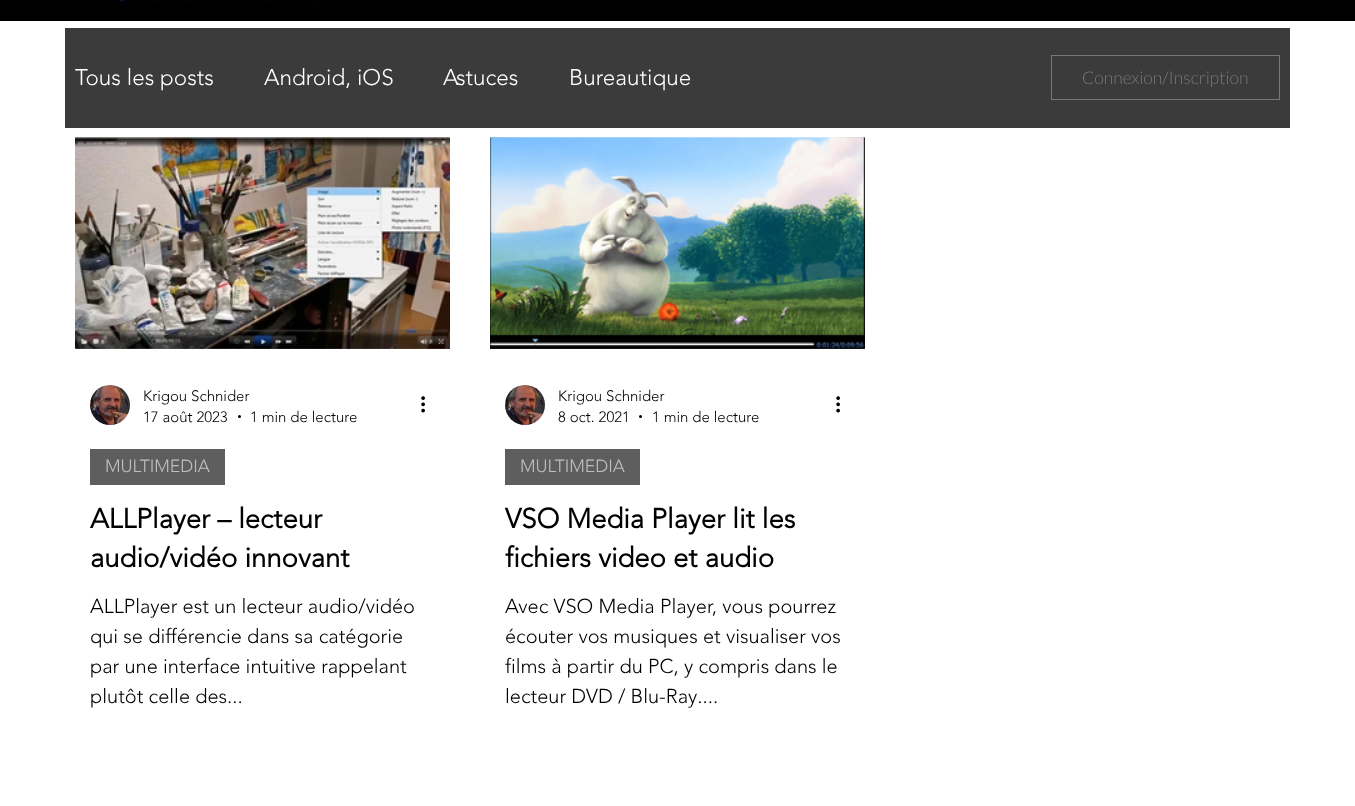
<?xml version="1.0" encoding="UTF-8"?>
<svg xmlns="http://www.w3.org/2000/svg" width="1355" height="806">
    <rect width="100%" height="100%" fill="#FFFFFF"/>
    <rect x="0" y="0" width="1355" height="21" fill="#000000"/>
    <image x="119" y="0" width="305" height="6" href="img_01.png"/>
    <rect x="65" y="28" width="1225" height="100" fill="#3B3B3B"/>
    <text x="75" y="85" font-family="'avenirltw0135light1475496'" font-size="22.5" font-weight="300" fill="#FFFFFF">Tous les posts</text>
    <text x="264" y="85" font-family="'avenirltw0135light1475496'" font-size="22.5" font-weight="300" fill="#FFFFFF">Android, iOS</text>
    <text x="443" y="85" font-family="'avenirltw0135light1475496'" font-size="22.5" font-weight="300" fill="#FFFFFF">Astuces</text>
    <text x="569" y="85" font-family="'avenirltw0135light1475496'" font-size="22.5" font-weight="300" fill="#FFFFFF">Bureautique</text>
    <rect x="1051.5" y="55.5" width="228" height="44" fill="none" stroke="#787878"/>
    <text x="1082" y="84" font-family="Lato" font-size="17.5" font-weight="300" fill="#787878">Connexion/Inscription</text>
    <image x="75" y="137" width="375" height="212" href="img_02.png"/>
    <image x="75" y="137" width="375" height="212" href="img_03.png"/>
    <image x="90" y="385" width="40" height="40" href="img_04.png"/>
    <text font-family="'avenirltw0135light1475496'" font-size="15" font-weight="300" fill="#000000">
        <tspan x="143" y="401">Krigou Schnider</tspan>
        <tspan x="143" y="422">17 août 2023</tspan>
    </text>
    <circle cx="239.5" cy="416.5" r="1.5" fill="#000000"/>
    <text x="250" y="422" font-family="'avenirltw0135light1475496'" font-size="15" font-weight="300" fill="#000000">1 min de lecture</text>
    <image x="421" y="396" width="4" height="17" href="img_05.png"/>
    <rect x="90" y="449" width="135" height="36" fill="#5E5E5E"/>
    <text x="105" y="472" font-family="'avenirltw0135light1475496'" font-size="17.5" font-weight="300" fill="#BFBFBF">MULTIMEDIA</text>
    <text font-family="'avenirltw0135light1475496'" font-size="27.5" font-weight="700" fill="#000000">
        <tspan x="90" y="528">ALLPlayer – lecteur</tspan>
        <tspan x="90" y="567">audio/vidéo innovant</tspan>
    </text>
    <text font-family="'avenirltw0135light1475496'" font-size="20" font-weight="300" fill="#000000">
        <tspan x="90" y="613">ALLPlayer est un lecteur audio/vidéo</tspan>
        <tspan x="90" y="643">qui se différencie dans sa catégorie</tspan>
        <tspan x="90" y="673">par une interface intuitive rappelant</tspan>
        <tspan x="90" y="703">plutôt celle des...</tspan>
    </text>
    <image x="490" y="137" width="375" height="212" href="img_06.png"/>
    <image x="490" y="137" width="375" height="212" href="img_07.png"/>
    <image x="505" y="385" width="40" height="40" href="img_04.png"/>
    <text font-family="'avenirltw0135light1475496'" font-size="15" font-weight="300" fill="#000000">
        <tspan x="558" y="401">Krigou Schnider</tspan>
        <tspan x="558" y="422">8 oct. 2021</tspan>
    </text>
    <circle cx="640.5" cy="416.5" r="1.5" fill="#000000"/>
    <text x="652" y="422" font-family="'avenirltw0135light1475496'" font-size="15" font-weight="300" fill="#000000">1 min de lecture</text>
    <image x="836" y="396" width="4" height="17" href="img_05.png"/>
    <rect x="505" y="449" width="135" height="36" fill="#5E5E5E"/>
    <text x="520" y="472" font-family="'avenirltw0135light1475496'" font-size="17.5" font-weight="300" fill="#BFBFBF">MULTIMEDIA</text>
    <text font-family="'avenirltw0135light1475496'" font-size="27.5" font-weight="700" fill="#000000">
        <tspan x="505" y="528">VSO Media Player lit les</tspan>
        <tspan x="505" y="567">fichiers video et audio</tspan>
    </text>
    <text font-family="'avenirltw0135light1475496'" font-size="20" font-weight="300" fill="#000000">
        <tspan x="505" y="613">Avec VSO Media Player, vous pourrez</tspan>
        <tspan x="505" y="643">écouter vos musiques et visualiser vos</tspan>
        <tspan x="505" y="673">films à partir du PC, y compris dans le</tspan>
        <tspan x="505" y="703">lecteur DVD / Blu-Ray....</tspan>
    </text>
</svg>
